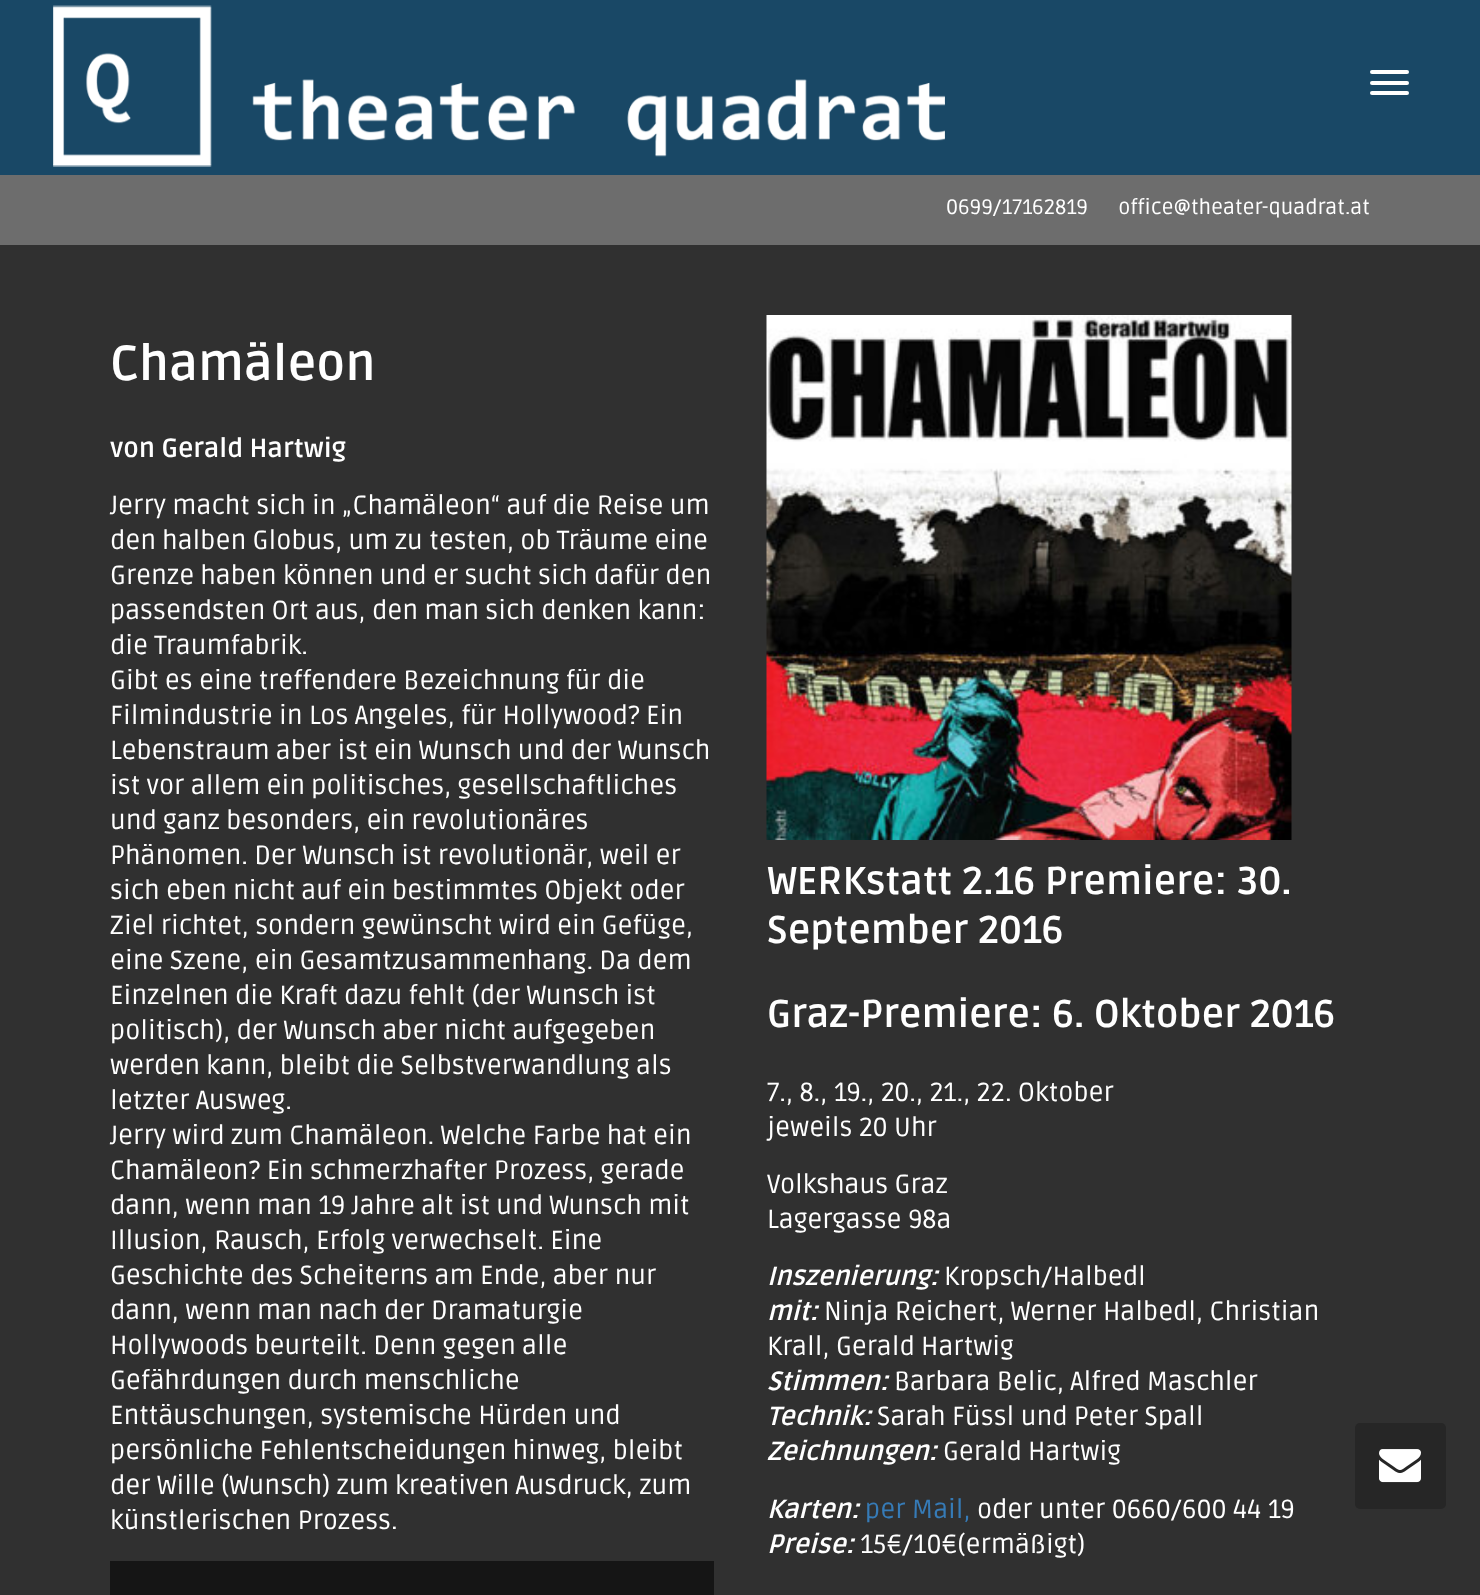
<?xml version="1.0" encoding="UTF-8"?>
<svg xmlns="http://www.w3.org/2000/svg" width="1480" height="1595">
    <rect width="100%" height="100%" fill="#303030"/>
    <rect x="0" y="0" width="1480" height="175" fill="#194866"/>
    <image x="53" y="5" width="892" height="162" href="img_01.png"/>
    <rect x="1370" y="70" width="39" height="4" rx="2" fill="#FFFFFF"/>
    <rect x="1370" y="81" width="39" height="4" rx="2" fill="#FFFFFF"/>
    <rect x="1370" y="91" width="39" height="4" rx="2" fill="#FFFFFF"/>
    <rect x="0" y="175" width="1480" height="70" fill="#6D6D6D"/>
    <text x="946" y="214" font-family="Ruda" font-size="21" fill="#FFFFFF" xml:space="preserve">0699/17162819      office@theater-quadrat.at</text>
    <text x="110" y="380" font-family="Ruda" font-size="49" font-weight="700" fill="#FFFFFF">Chamäleon</text>
    <text x="110" y="457" font-family="Ruda" font-size="26.25" font-weight="700" fill="#FFFFFF">von Gerald Hartwig</text>
    <text font-family="Ruda" font-size="26.25" fill="#FFFFFF">
        <tspan x="110" y="514">Jerry macht sich in „Chamäleon“ auf die Reise um</tspan>
        <tspan x="110" y="549">den halben Globus, um zu testen, ob Träume eine</tspan>
        <tspan x="110" y="584">Grenze haben können und er sucht sich dafür den</tspan>
        <tspan x="110" y="619">passendsten Ort aus, den man sich denken kann:</tspan>
        <tspan x="110" y="654">die Traumfabrik.</tspan>
        <tspan x="110" y="689">Gibt es eine treffendere Bezeichnung für die</tspan>
        <tspan x="110" y="724">Filmindustrie in Los Angeles, für Hollywood? Ein</tspan>
        <tspan x="110" y="759">Lebenstraum aber ist ein Wunsch und der Wunsch</tspan>
        <tspan x="110" y="794">ist vor allem ein politisches, gesellschaftliches</tspan>
        <tspan x="110" y="829">und ganz besonders, ein revolutionäres</tspan>
        <tspan x="110" y="864">Phänomen. Der Wunsch ist revolutionär, weil er</tspan>
        <tspan x="110" y="899">sich eben nicht auf ein bestimmtes Objekt oder</tspan>
        <tspan x="110" y="934">Ziel richtet, sondern gewünscht wird ein Gefüge,</tspan>
        <tspan x="110" y="969">eine Szene, ein Gesamtzusammenhang. Da dem</tspan>
        <tspan x="110" y="1004">Einzelnen die Kraft dazu fehlt (der Wunsch ist</tspan>
        <tspan x="110" y="1039">politisch), der Wunsch aber nicht aufgegeben</tspan>
        <tspan x="110" y="1074">werden kann, bleibt die Selbstverwandlung als</tspan>
        <tspan x="110" y="1109">letzter Ausweg.</tspan>
        <tspan x="110" y="1144">Jerry wird zum Chamäleon. Welche Farbe hat ein</tspan>
        <tspan x="110" y="1179">Chamäleon? Ein schmerzhafter Prozess, gerade</tspan>
        <tspan x="110" y="1214">dann, wenn man 19 Jahre alt ist und Wunsch mit</tspan>
        <tspan x="110" y="1249">Illusion, Rausch, Erfolg verwechselt. Eine</tspan>
        <tspan x="110" y="1284">Geschichte des Scheiterns am Ende, aber nur</tspan>
        <tspan x="110" y="1319">dann, wenn man nach der Dramaturgie</tspan>
        <tspan x="110" y="1354">Hollywoods beurteilt. Denn gegen alle</tspan>
        <tspan x="110" y="1389">Gefährdungen durch menschliche</tspan>
        <tspan x="110" y="1424">Enttäuschungen, systemische Hürden und</tspan>
        <tspan x="110" y="1459">persönliche Fehlentscheidungen hinweg, bleibt</tspan>
        <tspan x="110" y="1494">der Wille (Wunsch) zum kreativen Ausdruck, zum</tspan>
        <tspan x="110" y="1529">künstlerischen Prozess.</tspan>
    </text>
    <rect x="110" y="1561" width="604" height="34" fill="#151515"/>
    <image x="766" y="315" width="526" height="525" href="img_02.png"/>
    <text font-family="Ruda" font-size="38.5" font-weight="700" fill="#FFFFFF">
        <tspan x="767" y="894">WERKstatt 2.16 Premiere: 30.</tspan>
        <tspan x="767" y="943">September 2016</tspan>
    </text>
    <text x="767" y="1027" font-family="Ruda" font-size="38.5" font-weight="700" fill="#FFFFFF">Graz-Premiere: 6. Oktober 2016</text>
    <text font-family="Ruda" font-size="26.25" fill="#FFFFFF">
        <tspan x="767" y="1101">7., 8., 19., 20., 21., 22. Oktober</tspan>
        <tspan x="767" y="1136">jeweils 20 Uhr</tspan>
    </text>
    <text font-family="Ruda" font-size="26.25" fill="#FFFFFF">
        <tspan x="767" y="1193">Volkshaus Graz</tspan>
        <tspan x="767" y="1228">Lagergasse 98a</tspan>
    </text>
    <text x="767" y="1285" font-family="Ruda" font-size="26.25" font-weight="700" font-style="italic" fill="#FFFFFF">Inszenierung:</text>
    <text x="944" y="1285" font-family="Ruda" font-size="26.25" fill="#FFFFFF">Kropsch/Halbedl</text>
    <text x="767" y="1320" font-family="Ruda" font-size="26.25" font-weight="700" font-style="italic" fill="#FFFFFF">mit:</text>
    <text x="824" y="1320" font-family="Ruda" font-size="26.25" fill="#FFFFFF">Ninja Reichert, Werner Halbedl, Christian</text>
    <text x="767" y="1355" font-family="Ruda" font-size="26.25" fill="#FFFFFF">Krall, Gerald Hartwig</text>
    <text x="767" y="1390" font-family="Ruda" font-size="26.25" font-weight="700" font-style="italic" fill="#FFFFFF">Stimmen:</text>
    <text x="894" y="1390" font-family="Ruda" font-size="26.25" fill="#FFFFFF">Barbara Belic, Alfred Maschler</text>
    <text x="767" y="1425" font-family="Ruda" font-size="26.25" font-weight="700" font-style="italic" fill="#FFFFFF">Technik:</text>
    <text x="877" y="1425" font-family="Ruda" font-size="26.25" fill="#FFFFFF">Sarah Füssl und Peter Spall</text>
    <text x="767" y="1460" font-family="Ruda" font-size="26.25" font-weight="700" font-style="italic" fill="#FFFFFF">Zeichnungen:</text>
    <text x="943" y="1460" font-family="Ruda" font-size="26.25" fill="#FFFFFF">Gerald Hartwig</text>
    <text x="767" y="1518" font-family="Ruda" font-size="26.25" font-weight="700" font-style="italic" fill="#FFFFFF">Karten:</text>
    <text x="865" y="1518" font-family="Ruda" font-size="26.25" fill="#367BB7">per Mail,</text>
    <text x="977" y="1518" font-family="Ruda" font-size="26.25" fill="#FFFFFF">oder unter 0660/600 44 19</text>
    <text x="767" y="1553" font-family="Ruda" font-size="26.25" font-weight="700" font-style="italic" fill="#FFFFFF">Preise:</text>
    <text x="860" y="1553" font-family="Ruda" font-size="26.25" fill="#FFFFFF">15€/10€(ermäßigt)</text>
    <rect x="1355" y="1423" width="91" height="86" rx="5" fill="#262626"/>
    <image x="1379" y="1449" width="42" height="34" href="img_03.png"/>
</svg>
